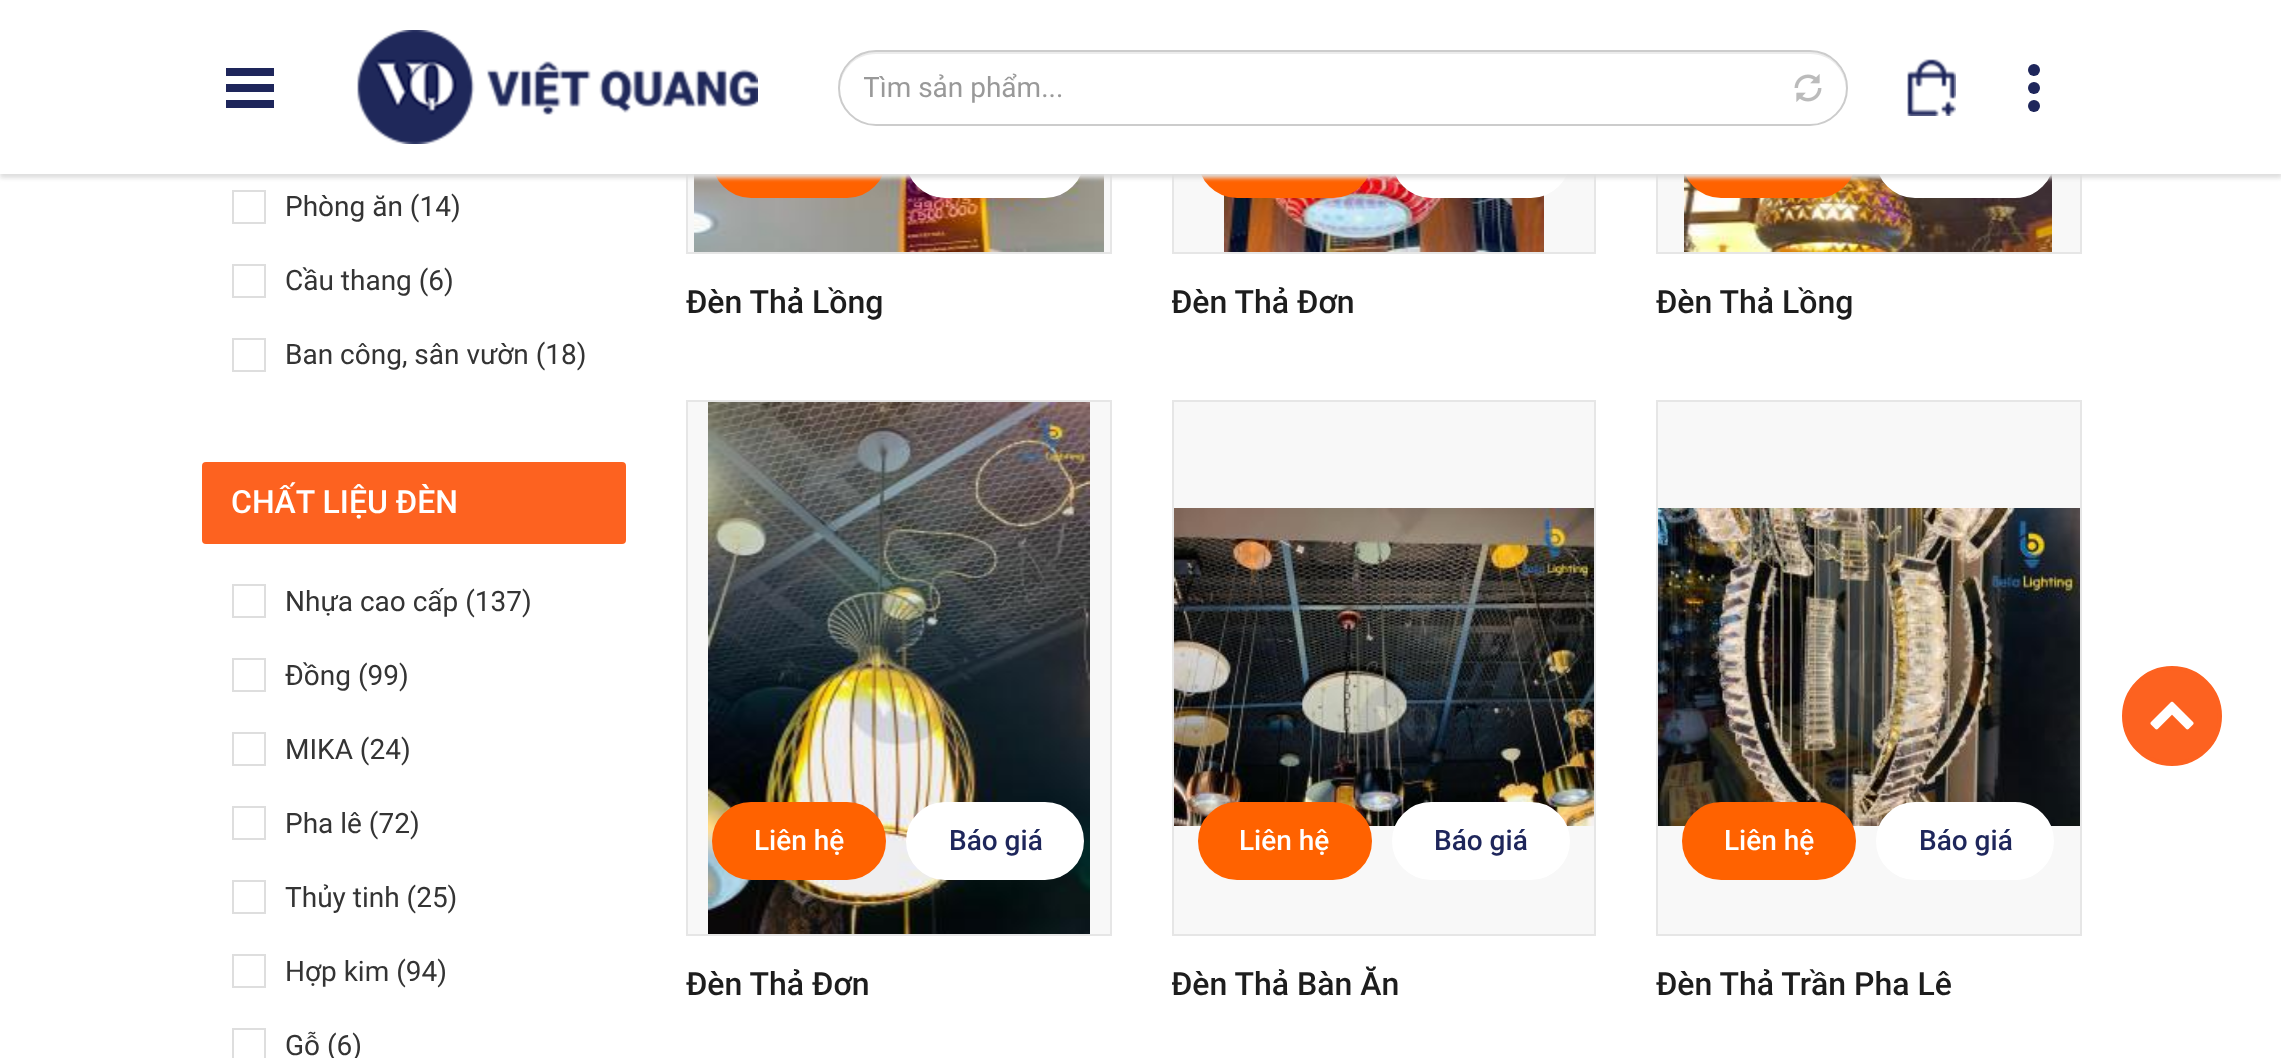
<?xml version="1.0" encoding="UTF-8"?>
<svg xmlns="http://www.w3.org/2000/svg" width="2281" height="1058">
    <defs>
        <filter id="blur1" x="-50%" y="-200%" width="200%" height="500%"><feGaussianBlur stdDeviation="2"/></filter>
        <clipPath id="clip1"><rect x="864" y="72" width="958" height="32"/></clipPath>
        <clipPath id="clip2"><rect x="1172" y="284" width="424" height="76"/></clipPath>
        <clipPath id="clip3"><rect x="1172" y="966" width="424" height="76"/></clipPath>
    </defs>
    <rect width="100%" height="100%" fill="#FFFFFF"/>
    <rect x="688" y="174" width="422" height="78" fill="#F8F8F8"/>
    <rect x="687" y="-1" width="424" height="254" fill="none" stroke="#E6E6E6" stroke-width="2"/>
    <image x="694" y="174" width="410" height="78" href="img_04.png"/>
    <rect x="713" y="121" width="172" height="76" rx="38" fill="#FF6200" stroke="#FF6200" stroke-width="2"/>
    <rect x="907" y="121" width="176" height="76" rx="38" fill="#FFFFFF" stroke="#FFFFFF" stroke-width="2"/>
    <rect x="1174" y="174" width="420" height="78" fill="#F8F8F8"/>
    <rect x="1173" y="-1" width="422" height="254" fill="none" stroke="#E6E6E6" stroke-width="2"/>
    <image x="1224" y="174" width="320" height="78" href="img_05.png"/>
    <rect x="1199" y="121" width="172" height="76" rx="38" fill="#FF6200" stroke="#FF6200" stroke-width="2"/>
    <rect x="1393" y="121" width="176" height="76" rx="38" fill="#FFFFFF" stroke="#FFFFFF" stroke-width="2"/>
    <rect x="1658" y="174" width="422" height="78" fill="#F8F8F8"/>
    <rect x="1657" y="-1" width="424" height="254" fill="none" stroke="#E6E6E6" stroke-width="2"/>
    <image x="1684" y="174" width="368" height="78" href="img_06.png"/>
    <rect x="1683" y="121" width="172" height="76" rx="38" fill="#FF6200" stroke="#FF6200" stroke-width="2"/>
    <rect x="1877" y="121" width="176" height="76" rx="38" fill="#FFFFFF" stroke="#FFFFFF" stroke-width="2"/>
    <rect x="0" y="4" width="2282" height="174" fill="#DEDEDE" filter="url(#blur1)"/>
    <rect x="0" y="0" width="2281" height="174" fill="#FFFFFF"/>
    <rect x="226" y="84" width="48" height="8" fill="#1E265B"/>
    <rect x="226" y="68" width="48" height="8" fill="#1E265B"/>
    <rect x="226" y="100" width="48" height="8" fill="#1E265B"/>
    <image x="357" y="30" width="401" height="114" href="img_01.png"/>
    <path d="M 876 54 H 1810 C 1830 54 1845 69 1846 89 V 88 C 1846 68 1830 52 1810 52 H 876 C 856 52 840 68 840 88 V 89 C 841 69 856 54 876 54 Z" fill="#ECECEC"/>
    <rect x="839" y="51" width="1008" height="74" rx="37" fill="none" stroke="#CCCCCC" stroke-width="2"/>
    <g clip-path="url(#clip1)">
        <text x="863" y="97" font-family="Roboto" font-size="28" fill="#999999">Tìm sản phẩm...</text>
    </g>
    <image x="1794" y="74" width="28" height="28" href="img_02.png"/>
    <image x="1907" y="59" width="49" height="57" href="img_03.png"/>
    <circle cx="2034" cy="88" r="6" fill="#1E265B"/>
    <circle cx="2034" cy="70" r="6" fill="#1E265B"/>
    <circle cx="2034" cy="106" r="6" fill="#1E265B"/>
    <rect x="233" y="191" width="32" height="32" fill="none" stroke="#DEDEDE" stroke-width="2"/>
    <text x="285" y="216" font-family="Roboto" font-size="28" fill="#343434">Phòng ăn (14)</text>
    <rect x="233" y="265" width="32" height="32" fill="none" stroke="#DEDEDE" stroke-width="2"/>
    <text x="285" y="290" font-family="Roboto" font-size="28" fill="#343434">Cầu thang (6)</text>
    <rect x="233" y="339" width="32" height="32" fill="none" stroke="#DEDEDE" stroke-width="2"/>
    <text x="285" y="364" font-family="Roboto" font-size="28" fill="#343434">Ban công, sân vườn (18)</text>
    <rect x="202" y="462" width="424" height="82" rx="4" fill="#FD6220"/>
    <text x="231" y="513" font-family="Roboto" font-size="32" font-weight="500" fill="#FFFFFF">CHẤT LIỆU ĐÈN</text>
    <rect x="233" y="585" width="32" height="32" fill="none" stroke="#DEDEDE" stroke-width="2"/>
    <text x="285" y="611" font-family="Roboto" font-size="28" fill="#343434">Nhựa cao cấp (137)</text>
    <rect x="233" y="659" width="32" height="32" fill="none" stroke="#DEDEDE" stroke-width="2"/>
    <text x="285" y="685" font-family="Roboto" font-size="28" fill="#343434">Đồng (99)</text>
    <rect x="233" y="733" width="32" height="32" fill="none" stroke="#DEDEDE" stroke-width="2"/>
    <text x="285" y="759" font-family="Roboto" font-size="28" fill="#343434">MIKA (24)</text>
    <rect x="233" y="807" width="32" height="32" fill="none" stroke="#DEDEDE" stroke-width="2"/>
    <text x="285" y="833" font-family="Roboto" font-size="28" fill="#343434">Pha lê (72)</text>
    <rect x="233" y="881" width="32" height="32" fill="none" stroke="#DEDEDE" stroke-width="2"/>
    <text x="285" y="907" font-family="Roboto" font-size="28" fill="#343434">Thủy tinh (25)</text>
    <rect x="233" y="955" width="32" height="32" fill="none" stroke="#DEDEDE" stroke-width="2"/>
    <text x="285" y="981" font-family="Roboto" font-size="28" fill="#343434">Hợp kim (94)</text>
    <rect x="233" y="1029" width="32" height="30" fill="none" stroke="#DEDEDE" stroke-width="2"/>
    <text x="285" y="1055" font-family="Roboto" font-size="28" fill="#343434">Gỗ (6)</text>
    <text x="686" y="313" font-family="Roboto" font-size="32" font-weight="500" fill="#1D1D1D">Đèn Thả Lồng</text>
    <g clip-path="url(#clip2)">
        <text x="1171" y="313" font-family="Roboto" font-size="32" font-weight="500" fill="#1D1D1D">Đèn Thả Đơn</text>
    </g>
    <text x="1656" y="313" font-family="Roboto" font-size="32" font-weight="500" fill="#1D1D1D">Đèn Thả Lồng</text>
    <rect x="687" y="401" width="424" height="534" fill="#F8F8F8" stroke="#E6E6E6" stroke-width="2"/>
    <image x="708" y="402" width="382" height="532" href="img_07.png"/>
    <rect x="713" y="803" width="172" height="76" rx="38" fill="#FF6200" stroke="#FF6200" stroke-width="2"/>
    <text x="754" y="850" font-family="Roboto" font-size="28" font-weight="500" fill="#FFFFFF">Liên hệ</text>
    <rect x="907" y="803" width="176" height="76" rx="38" fill="#FFFFFF" stroke="#FFFFFF" stroke-width="2"/>
    <text x="949" y="850" font-family="Roboto" font-size="28" font-weight="500" fill="#1E265B">Báo giá</text>
    <text x="686" y="995" font-family="Roboto" font-size="32" font-weight="500" fill="#1D1D1D">Đèn Thả Đơn</text>
    <rect x="1173" y="401" width="422" height="534" fill="#F8F8F8" stroke="#E6E6E6" stroke-width="2"/>
    <image x="1174" y="508" width="420" height="318" href="img_08.png"/>
    <rect x="1199" y="803" width="172" height="76" rx="38" fill="#FF6200" stroke="#FF6200" stroke-width="2"/>
    <text x="1239" y="850" font-family="Roboto" font-size="28" font-weight="500" fill="#FFFFFF">Liên hệ</text>
    <rect x="1393" y="803" width="176" height="76" rx="38" fill="#FFFFFF" stroke="#FFFFFF" stroke-width="2"/>
    <text x="1434" y="850" font-family="Roboto" font-size="28" font-weight="500" fill="#1E265B">Báo giá</text>
    <g clip-path="url(#clip3)">
        <text x="1171" y="995" font-family="Roboto" font-size="32" font-weight="500" fill="#1D1D1D">Đèn Thả Bàn Ăn</text>
    </g>
    <rect x="1657" y="401" width="424" height="534" fill="#F8F8F8" stroke="#E6E6E6" stroke-width="2"/>
    <image x="1658" y="508" width="422" height="318" href="img_09.png"/>
    <rect x="1683" y="803" width="172" height="76" rx="38" fill="#FF6200" stroke="#FF6200" stroke-width="2"/>
    <text x="1724" y="850" font-family="Roboto" font-size="28" font-weight="500" fill="#FFFFFF">Liên hệ</text>
    <rect x="1877" y="803" width="176" height="76" rx="38" fill="#FFFFFF" stroke="#FFFFFF" stroke-width="2"/>
    <text x="1919" y="850" font-family="Roboto" font-size="28" font-weight="500" fill="#1E265B">Báo giá</text>
    <text x="1656" y="995" font-family="Roboto" font-size="32" font-weight="500" fill="#1D1D1D">Đèn Thả Trần Pha Lê</text>
    <circle cx="2172" cy="716" r="48" fill="#FD6220" stroke="#FD6220" stroke-width="4"/>
    <image x="2150" y="701" width="44" height="29" href="img_10.png"/>
</svg>
